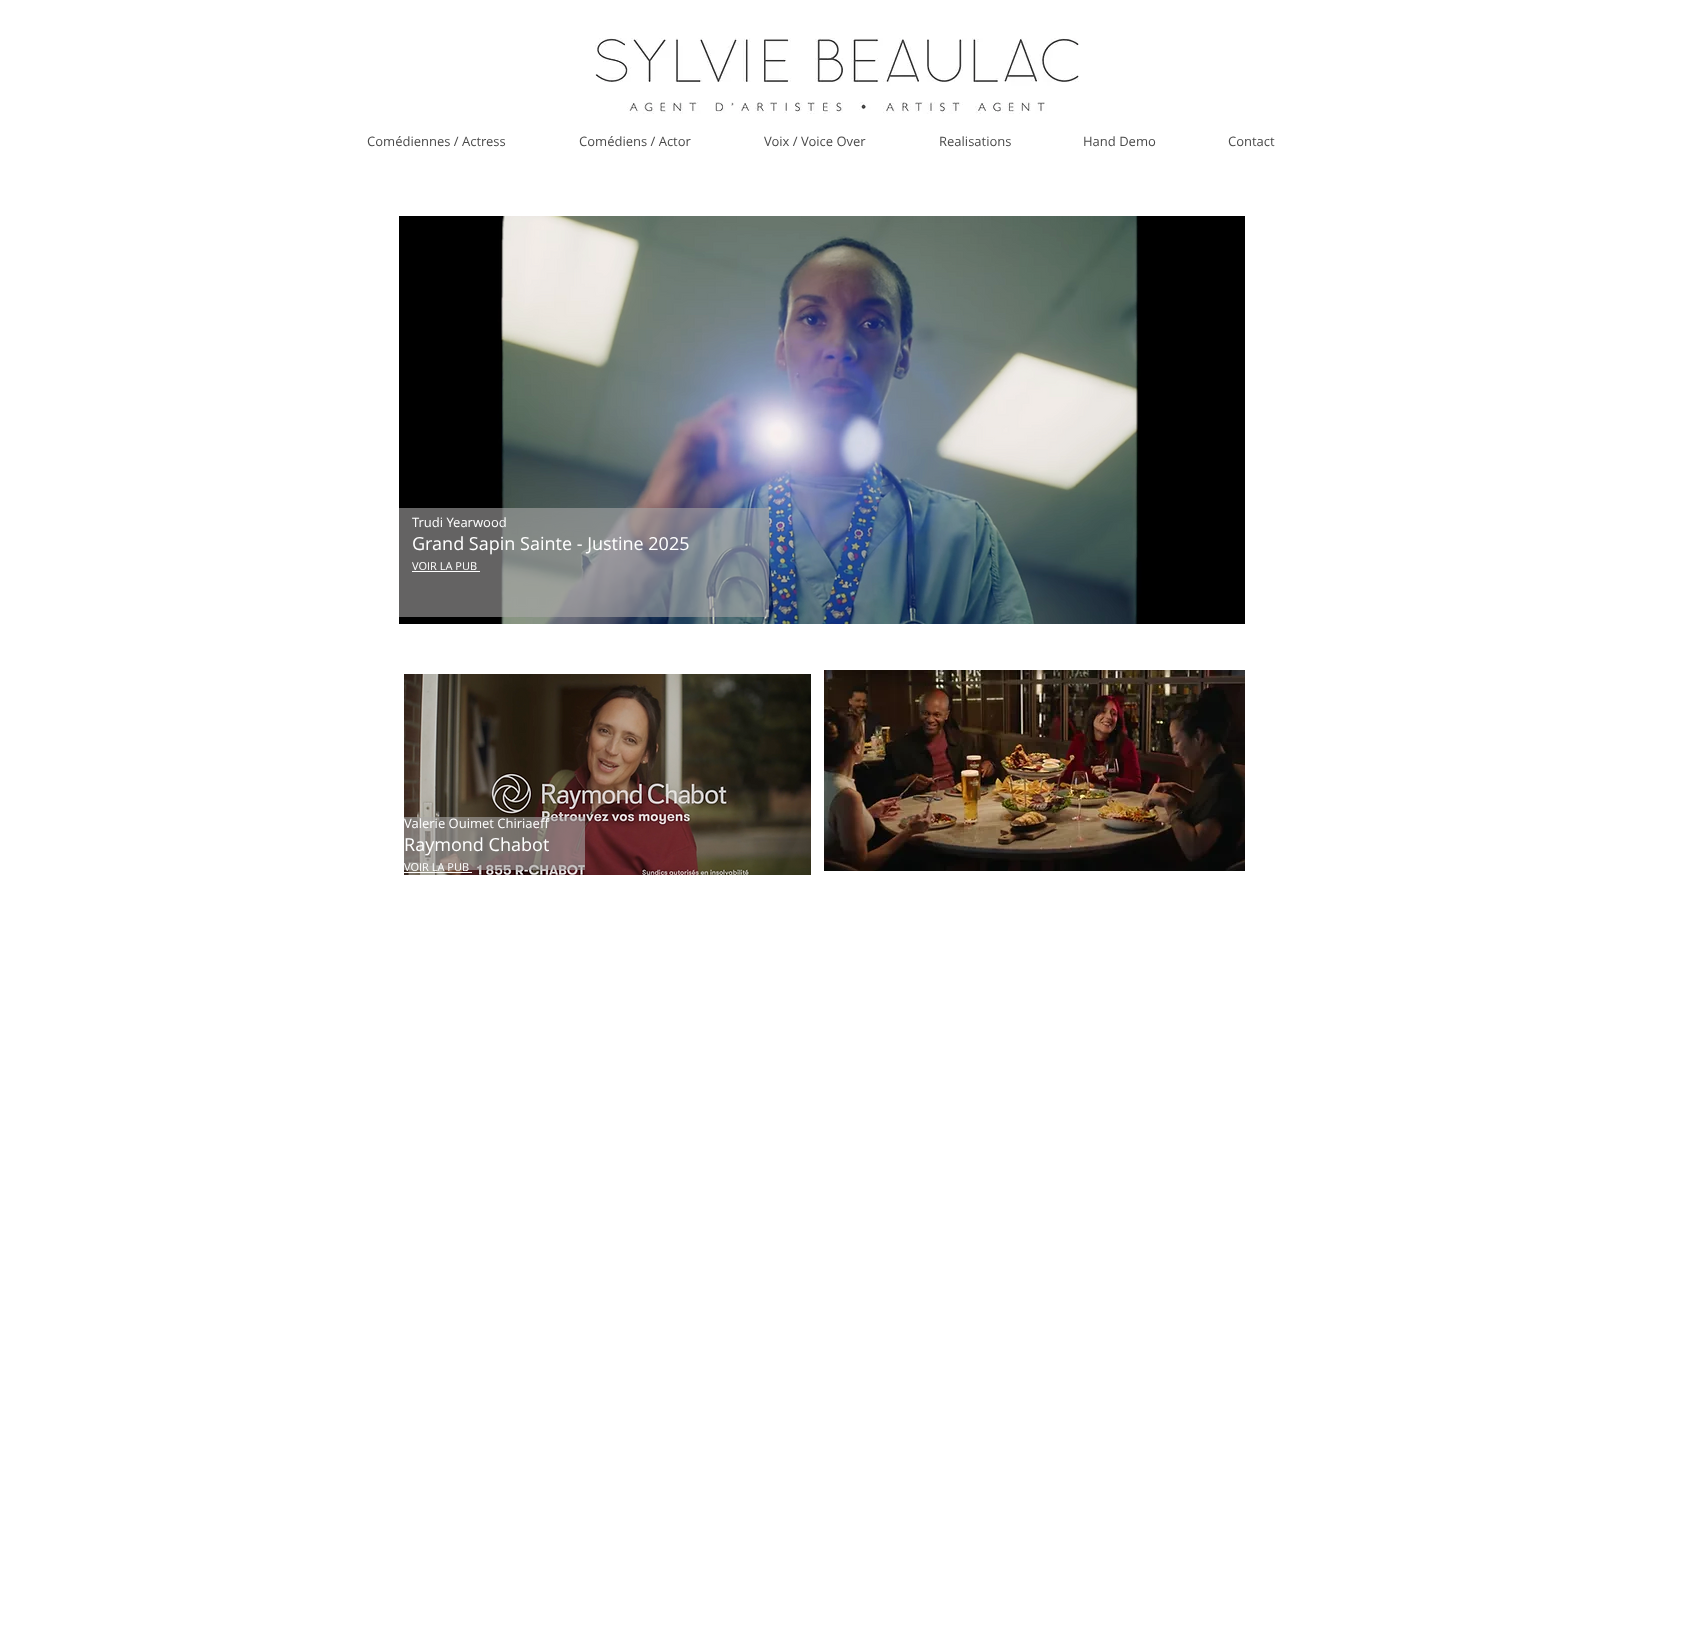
<?xml version="1.0" encoding="UTF-8"?>
<svg xmlns="http://www.w3.org/2000/svg" width="1684" height="1636">
    <rect width="100%" height="100%" fill="#FFFFFF"/>
    <image x="595" y="38" width="484" height="76" href="img_01.png"/>
    <text x="367" y="146" font-family="Open Sans" font-size="13" fill="#4A4A4A">Comédiennes / Actress</text>
    <text x="579" y="146" font-family="Open Sans" font-size="13" fill="#4A4A4A">Comédiens / Actor</text>
    <text x="764" y="146" font-family="Open Sans" font-size="13" fill="#4A4A4A">Voix / Voice Over</text>
    <text x="939" y="146" font-family="Open Sans" font-size="13" fill="#4A4A4A">Realisations</text>
    <text x="1083" y="146" font-family="Open Sans" font-size="13" fill="#4A4A4A">Hand Demo</text>
    <text x="1228" y="146" font-family="Open Sans" font-size="13" fill="#4A4A4A">Contact</text>
    <image x="399" y="216" width="846" height="408" href="img_02.png"/>
    <rect x="399" y="508" width="370" height="109" fill="#AAA8A8" fill-opacity="0.59"/>
    <text x="412" y="527" font-family="Open Sans" font-size="13" fill="#FFFFFF">Trudi Yearwood</text>
    <text x="412" y="550" font-family="Open Sans" font-size="18" fill="#FFFFFF">Grand Sapin Sainte - Justine 2025</text>
    <text x="412" y="570" font-family="Open Sans" font-size="11" fill="#FFFFFF">VOIR LA PUB</text>
    <rect x="412" y="571" width="68" height="1" fill="#FFFFFF"/>
    <image x="404" y="674" width="407" height="201" href="img_03.png"/>
    <image x="824" y="670" width="421" height="201" href="img_04.png"/>
    <rect x="404" y="817" width="181" height="53" fill="#AAA8A8" fill-opacity="0.59"/>
    <text x="404" y="828" font-family="Open Sans" font-size="13" fill="#FFFFFF">Valerie Ouimet Chiriaeff</text>
    <text x="404" y="851" font-family="Open Sans" font-size="18" fill="#FFFFFF">Raymond Chabot</text>
    <text x="404" y="871" font-family="Open Sans" font-size="11" fill="#FFFFFF">VOIR LA PUB</text>
    <rect x="404" y="872" width="68" height="1" fill="#FFFFFF"/>
</svg>
